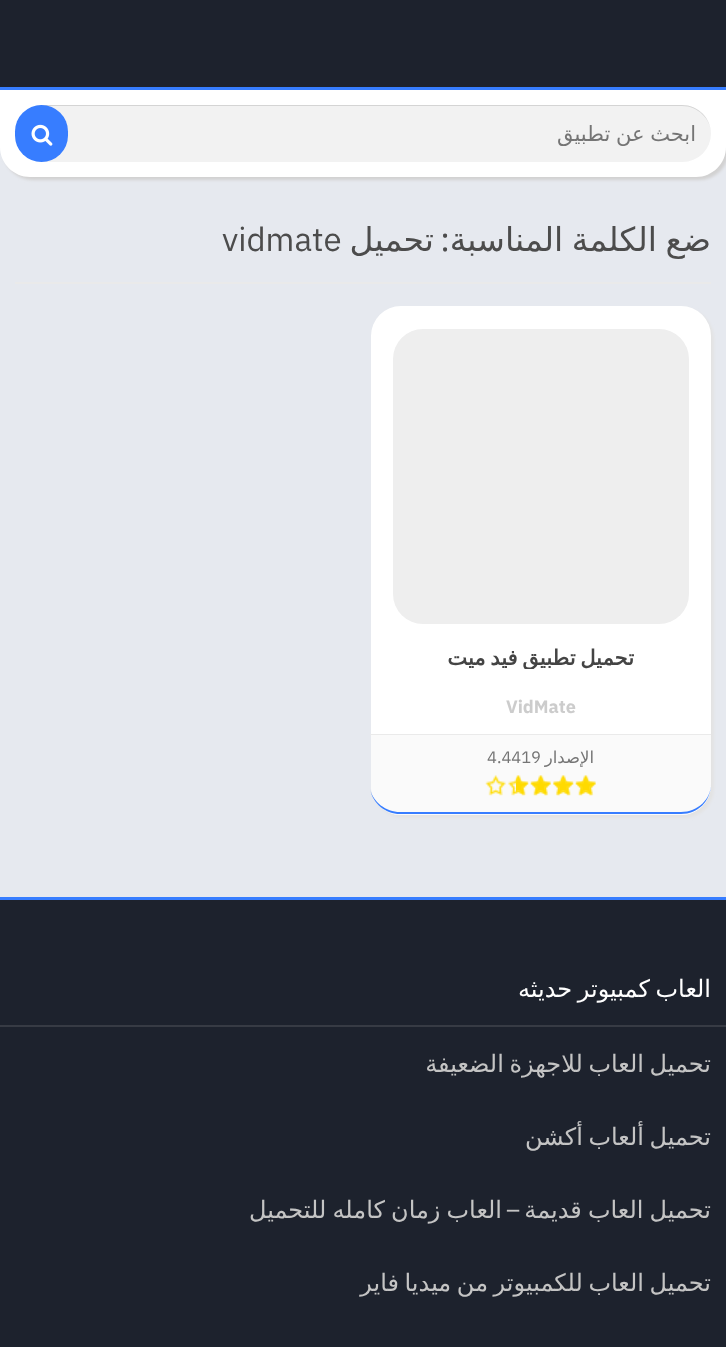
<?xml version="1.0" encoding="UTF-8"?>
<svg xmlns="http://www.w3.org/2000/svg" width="726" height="1347">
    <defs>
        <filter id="blur1" x="-50%" y="-200%" width="200%" height="500%"><feGaussianBlur stdDeviation="1.5"/></filter>
        <clipPath id="clip1"><rect x="128" y="122" width="568" height="24"/></clipPath>
        <clipPath id="clip2"><rect x="393" y="639" width="296" height="30"/></clipPath>
        <clipPath id="clip3"><path d="M 15 1026 H 711 V 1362 C 711 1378.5 697.5 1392 681 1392 H 45 C 28.5 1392 15 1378.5 15 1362 Z"/></clipPath>
    </defs>
    <rect width="100%" height="100%" fill="#E6E9EF"/>
    <rect x="3" y="3" width="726" height="177" rx="30" fill="#D2D1D1" filter="url(#blur1)"/>
    <path d="M 0 0 H 726 V 147 C 726 163.5 712.5 177 696 177 H 30 C 13.5 177 0 163.5 0 147 Z" fill="#FFFFFF"/>
    <rect x="0" y="0" width="726" height="87" fill="#1D222D"/>
    <rect x="0" y="87" width="726" height="3" fill="#377DFF"/>
    <rect x="15" y="105" width="696" height="57" rx="28.5" fill="#F2F2F2"/>
    <path d="M 44 106 H 682 C 698 106 711 119 711 134 C 711 118 698 105 682 105 H 44 C 28 105 15 118 15 134 C 15 119 28 106 44 106 Z" fill="#000000" fill-opacity="0.12"/>
    <g clip-path="url(#clip1)">
        <text x="696" y="141" word-spacing="-1" font-family="DejaVu Sans" font-size="21" direction="rtl" fill="#757575">ابحث عن تطبيق</text>
    </g>
    <rect x="15" y="105" width="53" height="57" rx="26.5" fill="#377DFF"/>
    <image x="31" y="124" width="22" height="22" href="img_01.png"/>
    <rect x="15" y="282" width="696" height="2" fill="#EAEAEA"/>
    <text x="711" y="251" word-spacing="-2" font-family="DejaVu Sans" font-size="33" direction="rtl" fill="#4C4C4C">ضع الكلمة المناسبة</text>
    <text x="450" y="251" font-family="anuphan" font-size="33" direction="rtl" fill="#4C4C4C">:</text>
    <text x="434" y="251" font-family="DejaVu Sans" font-size="33" direction="rtl" fill="#4C4C4C">تحميل</text>
    <text x="222" y="251" font-family="anuphan" font-size="33" fill="#4C4C4C">vidmate</text>
    <rect x="374" y="309" width="340" height="509" rx="30" fill="#E3E3E3" filter="url(#blur1)"/>
    <rect x="371" y="306" width="340" height="509" rx="30" fill="#FFFFFF"/>
    <rect x="393" y="329" width="296" height="295" rx="30" fill="#EEEEEE"/>
    <g clip-path="url(#clip2)">
        <text x="634" y="665" word-spacing="-2" font-family="DejaVu Sans" font-size="21" font-weight="700" direction="rtl" fill="#444444">تحميل تطبيق فيد ميت</text>
    </g>
    <text x="506" y="713" font-family="anuphan" font-size="18" font-weight="700" fill="#CCCCCC">VidMate</text>
    <path d="M 371 734 H 711 V 785 C 711 801.5 697.5 815 681 815 H 401 C 384.5 815 371 801.5 371 785 Z" fill="#FAFAFA"/>
    <rect x="370" y="734" width="341" height="1" fill="#EAEAEA"/>
    <path d="M 370 789 C 373 802 386 812 400 812 H 681 C 698 812 711 799 711 784 C 711 801 698 814 681 814 H 400 C 386 814 373 804 370 789 Z" fill="#377DFF"/>
    <text x="594" y="763" font-family="DejaVu Sans" font-size="16.5" direction="rtl" fill="#757575">الإصدار</text>
    <text x="487" y="763" font-family="anuphan" font-size="16.5" fill="#757575">4.4419</text>
    <image x="485" y="775" width="111" height="21" href="img_02.png"/>
    <image x="516" y="775" width="80" height="21" href="img_03.png"/>
    <rect x="0" y="900" width="726" height="447" fill="#1D222D"/>
    <rect x="0" y="897" width="726" height="3" fill="#377DFF"/>
    <rect x="0" y="1025" width="726" height="2" fill="#373B44"/>
    <text x="711" y="997" word-spacing="-2" font-family="DejaVu Sans" font-size="24" direction="rtl" fill="#FFFFFF">العاب كمبيوتر حديثه</text>
    <g clip-path="url(#clip3)">
        <text x="711" y="1072" word-spacing="-2" font-family="DejaVu Sans" font-size="24" direction="rtl" fill="#C4C4C4">تحميل العاب للاجهزة الضعيفة</text>
        <text x="711" y="1145" word-spacing="-2" font-family="DejaVu Sans" font-size="24" direction="rtl" fill="#C4C4C4">تحميل ألعاب أكشن</text>
        <text x="711" y="1218" word-spacing="-1.5" font-family="DejaVu Sans" font-size="24" direction="rtl" fill="#C4C4C4">تحميل العاب قديمة</text>
    </g>
    <text x="520" y="1218" font-family="anuphan" font-size="24" direction="rtl" fill="#C4C4C4">–</text>
    <text x="502" y="1218" word-spacing="-1.5" font-family="DejaVu Sans" font-size="24" direction="rtl" fill="#C4C4C4">العاب زمان كامله للتحميل</text>
    <g clip-path="url(#clip3)">
        <text x="711" y="1291" word-spacing="-2" font-family="DejaVu Sans" font-size="24" direction="rtl" fill="#C4C4C4">تحميل العاب للكمبيوتر من ميديا فاير</text>
    </g>
</svg>
